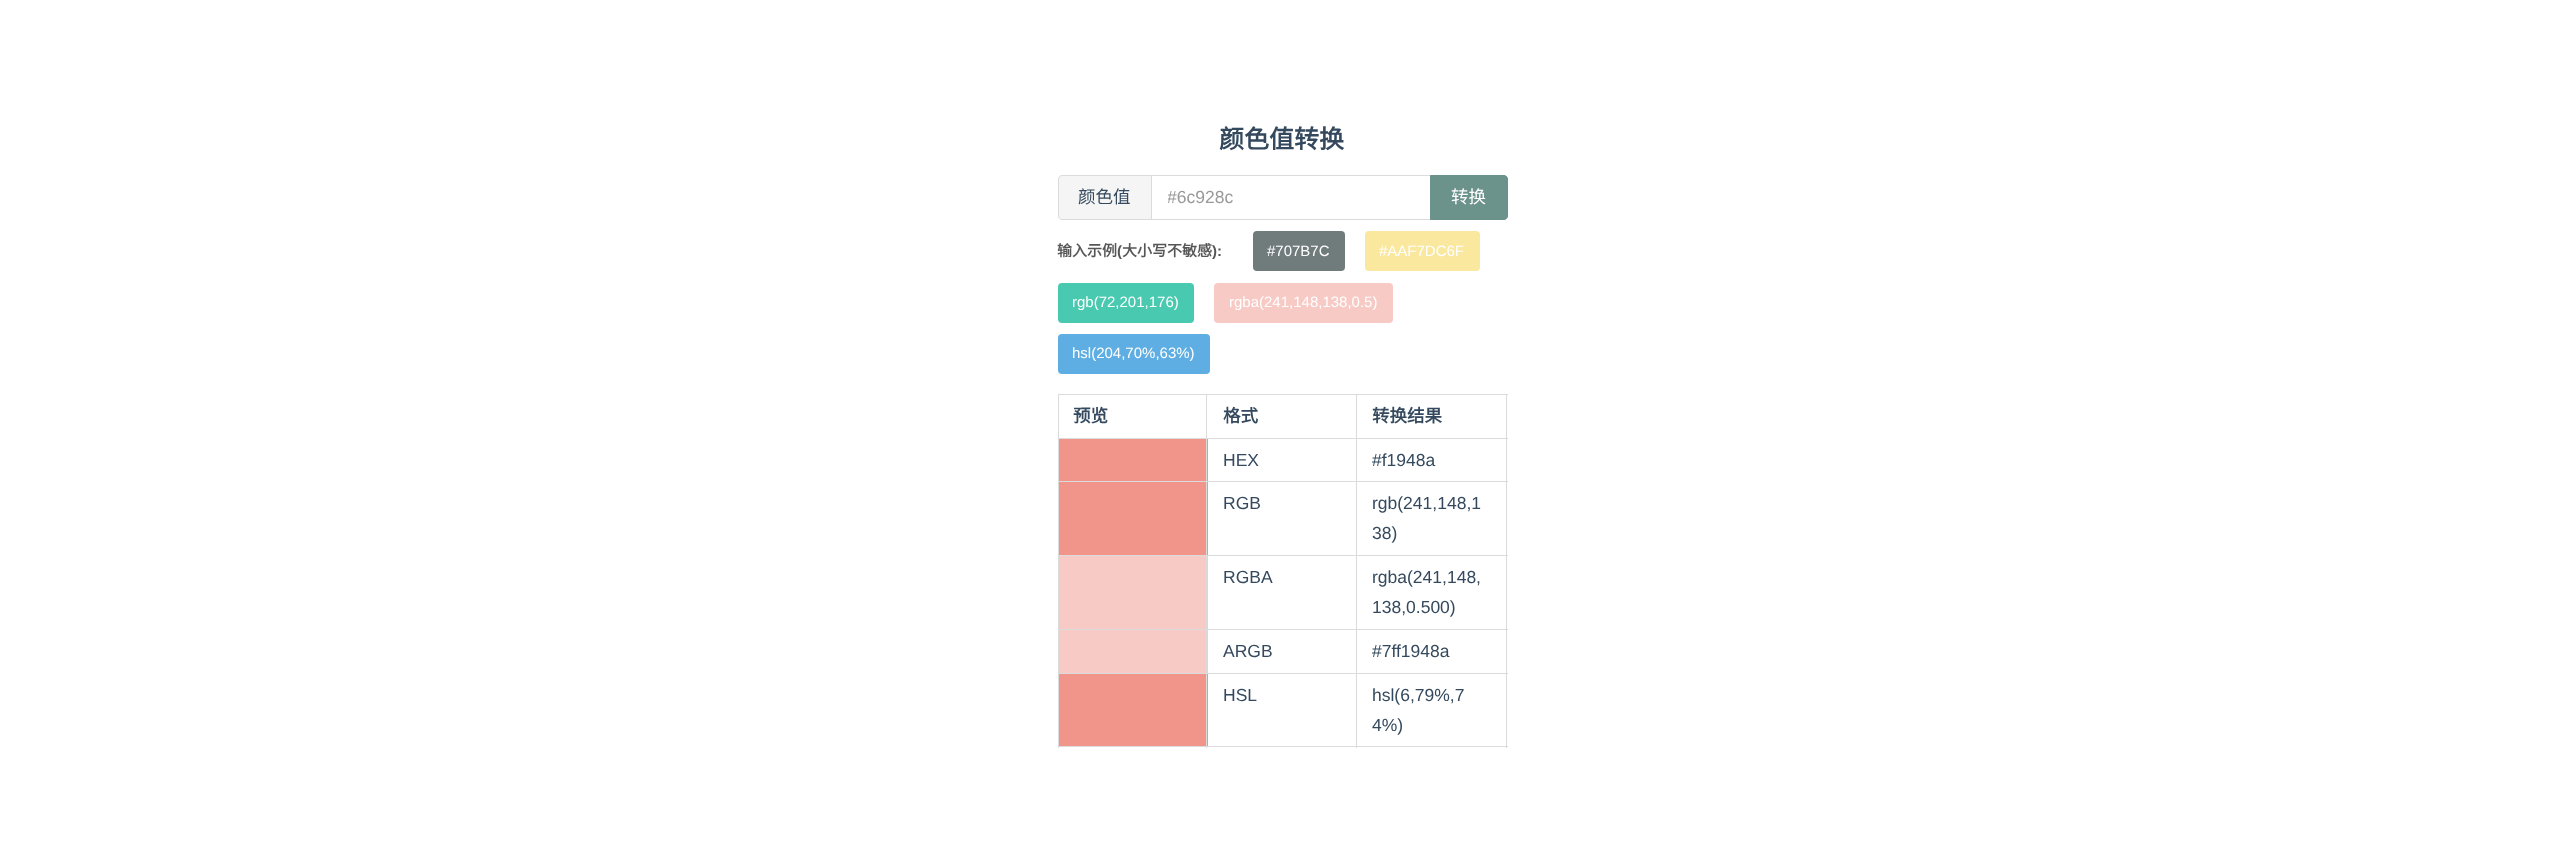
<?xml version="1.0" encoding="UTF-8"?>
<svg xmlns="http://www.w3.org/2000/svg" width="2563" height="861">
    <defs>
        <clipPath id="clip1"><rect x="1168" y="188" width="247" height="20"/></clipPath>
    </defs>
    <rect width="100%" height="100%" fill="#FFFFFF"/>
    <text x="1219" y="148" font-family="Noto Sans CJK SC" font-size="25" font-weight="700" fill="#34495E">颜色值转换</text>
    <path d="M 1062 175.5 H 1152.5 V 219.5 H 1062 C 1060 219.5 1058.5 218 1058.5 216 V 179 C 1058.5 177 1060 175.5 1062 175.5 Z" fill="#F5F5F5" stroke="#DBDBDB"/>
    <text x="1078" y="203" font-family="Noto Sans CJK SC" font-size="17.5" fill="#34495E">颜色值</text>
    <rect x="1152" y="176" width="1" height="43" fill="#FFFFFF"/>
    <rect x="1151.5" y="175.5" width="279" height="44" fill="none" stroke="#DBDBDB"/>
    <g clip-path="url(#clip1)">
        <text x="1167" y="203" font-family="Liberation Sans" font-size="17.5" fill="#999999">#6c928c</text>
    </g>
    <path d="M 1430.5 175.5 H 1504 C 1506 175.5 1507.5 177 1507.5 179 V 216 C 1507.5 218 1506 219.5 1504 219.5 H 1430.5 Z" fill="#6C928C" stroke="#6C928C"/>
    <text x="1451" y="203" font-family="Noto Sans CJK SC" font-size="17.5" fill="#FFFFFF">转换</text>
    <text x="1057" y="256" font-family="Noto Sans CJK SC" font-size="15" font-weight="700" fill="#565656">输入示例</text>
    <text x="1117" y="256" font-family="Liberation Sans" font-size="15" font-weight="700" fill="#565656">(</text>
    <text x="1122" y="256" font-family="Noto Sans CJK SC" font-size="15" font-weight="700" fill="#565656">大小写不敏感</text>
    <text x="1212" y="256" font-family="Liberation Sans" font-size="15" font-weight="700" fill="#565656">):</text>
    <rect x="1253" y="231" width="92" height="40" rx="4" fill="#707B7C"/>
    <text x="1267" y="256" font-family="Liberation Sans" font-size="15" fill="#FFFFFF">#707B7C</text>
    <rect x="1365" y="231" width="115" height="40" rx="4" fill="#FAE89F"/>
    <text x="1379" y="256" font-family="Liberation Sans" font-size="15" fill="#FFFFFF">#AAF7DC6F</text>
    <rect x="1058" y="283" width="136" height="40" rx="4" fill="#48C9B0"/>
    <text x="1072" y="307" font-family="Liberation Sans" font-size="15" fill="#FFFFFF">rgb(72,201,176)</text>
    <rect x="1214" y="283" width="179" height="40" rx="4" fill="#F8CAC5"/>
    <text x="1229" y="307" font-family="Liberation Sans" font-size="15" fill="#FFFFFF">rgba(241,148,138,0.5)</text>
    <rect x="1058" y="334" width="152" height="40" rx="4" fill="#5FAEE3"/>
    <text x="1072" y="358" font-family="Liberation Sans" font-size="15" fill="#FFFFFF">hsl(204,70%,63%)</text>
    <rect x="1356" y="394" width="152" height="1" fill="#DBDBDB"/>
    <rect x="1356" y="438" width="152" height="1" fill="#DBDBDB"/>
    <rect x="1356" y="481" width="152" height="1" fill="#DBDBDB"/>
    <rect x="1356" y="555" width="152" height="1" fill="#DBDBDB"/>
    <rect x="1356" y="629" width="152" height="1" fill="#DBDBDB"/>
    <rect x="1356" y="673" width="152" height="1" fill="#DBDBDB"/>
    <rect x="1506" y="673" width="1" height="75" fill="#DBDBDB"/>
    <rect x="1356" y="746" width="152" height="1" fill="#DBDBDB"/>
    <rect x="1356" y="673" width="1" height="75" fill="#DBDBDB"/>
    <rect x="1206" y="673" width="152" height="1" fill="#DBDBDB"/>
    <rect x="1356" y="629" width="1" height="45" fill="#DBDBDB"/>
    <rect x="1206" y="629" width="152" height="1" fill="#DBDBDB"/>
    <rect x="1356" y="555" width="1" height="75" fill="#DBDBDB"/>
    <rect x="1206" y="555" width="152" height="1" fill="#DBDBDB"/>
    <rect x="1356" y="481" width="1" height="75" fill="#DBDBDB"/>
    <rect x="1206" y="481" width="152" height="1" fill="#DBDBDB"/>
    <rect x="1356" y="438" width="1" height="45" fill="#DBDBDB"/>
    <rect x="1206" y="438" width="152" height="1" fill="#DBDBDB"/>
    <rect x="1356" y="394" width="1" height="45" fill="#DBDBDB"/>
    <rect x="1206" y="394" width="152" height="1" fill="#DBDBDB"/>
    <rect x="1059" y="439" width="149" height="42" fill="#F1948A"/>
    <rect x="1059" y="482" width="149" height="73" fill="#F1948A"/>
    <rect x="1059" y="556" width="149" height="73" fill="#F8CAC5"/>
    <rect x="1059" y="630" width="149" height="43" fill="#F8CAC5"/>
    <rect x="1059" y="674" width="149" height="72" fill="#F1948A"/>
    <rect x="1206" y="746" width="152" height="1" fill="#DBDBDB"/>
    <rect x="1206" y="673" width="1" height="75" fill="#DBDBDB"/>
    <rect x="1058" y="673" width="150" height="1" fill="#DBDBDB"/>
    <rect x="1206" y="629" width="1" height="45" fill="#DBDBDB"/>
    <rect x="1058" y="629" width="150" height="1" fill="#DBDBDB"/>
    <rect x="1206" y="555" width="1" height="75" fill="#DBDBDB"/>
    <rect x="1058" y="555" width="150" height="1" fill="#DBDBDB"/>
    <rect x="1206" y="481" width="1" height="75" fill="#DBDBDB"/>
    <rect x="1058" y="481" width="150" height="1" fill="#DBDBDB"/>
    <rect x="1206" y="438" width="1" height="45" fill="#DBDBDB"/>
    <rect x="1058" y="438" width="150" height="1" fill="#DBDBDB"/>
    <rect x="1206" y="394" width="1" height="45" fill="#DBDBDB"/>
    <rect x="1058" y="394" width="150" height="1" fill="#DBDBDB"/>
    <rect x="1058" y="746" width="150" height="1" fill="#DBDBDB"/>
    <rect x="1058" y="673" width="1" height="75" fill="#DBDBDB"/>
    <rect x="1058" y="629" width="1" height="45" fill="#DBDBDB"/>
    <rect x="1058" y="555" width="1" height="75" fill="#DBDBDB"/>
    <rect x="1058" y="481" width="1" height="75" fill="#DBDBDB"/>
    <rect x="1058" y="438" width="1" height="45" fill="#DBDBDB"/>
    <rect x="1058" y="394" width="1" height="45" fill="#DBDBDB"/>
    <text x="1073" y="422" font-family="Noto Sans CJK SC" font-size="17.5" font-weight="700" fill="#34495E">预览</text>
    <text x="1223" y="422" font-family="Noto Sans CJK SC" font-size="17.5" font-weight="700" fill="#34495E">格式</text>
    <rect x="1506" y="629" width="1" height="45" fill="#DBDBDB"/>
    <rect x="1506" y="555" width="1" height="75" fill="#DBDBDB"/>
    <rect x="1506" y="481" width="1" height="75" fill="#DBDBDB"/>
    <rect x="1506" y="438" width="1" height="45" fill="#DBDBDB"/>
    <rect x="1506" y="394" width="1" height="45" fill="#DBDBDB"/>
    <text x="1372" y="422" font-family="Noto Sans CJK SC" font-size="17.5" font-weight="700" fill="#34495E">转换结果</text>
    <text x="1223" y="466" font-family="Liberation Sans" font-size="17.5" fill="#34495E">HEX</text>
    <text x="1372" y="466" font-family="Liberation Sans" font-size="17.5" fill="#34495E">#f1948a</text>
    <text x="1223" y="509" font-family="Liberation Sans" font-size="17.5" fill="#34495E">RGB</text>
    <text font-family="Liberation Sans" font-size="17.5" fill="#34495E">
        <tspan x="1372" y="509">rgb(241,148,1</tspan>
        <tspan x="1372" y="539">38)</tspan>
    </text>
    <text x="1223" y="583" font-family="Liberation Sans" font-size="17.5" fill="#34495E">RGBA</text>
    <text font-family="Liberation Sans" font-size="17.5" fill="#34495E">
        <tspan x="1372" y="583">rgba(241,148,</tspan>
        <tspan x="1372" y="613">138,0.500)</tspan>
    </text>
    <text x="1223" y="657" font-family="Liberation Sans" font-size="17.5" fill="#34495E">ARGB</text>
    <text x="1372" y="657" font-family="Liberation Sans" font-size="17.5" fill="#34495E">#7ff1948a</text>
    <text x="1223" y="701" font-family="Liberation Sans" font-size="17.5" fill="#34495E">HSL</text>
    <text font-family="Liberation Sans" font-size="17.5" fill="#34495E">
        <tspan x="1372" y="701">hsl(6,79%,7</tspan>
        <tspan x="1372" y="731">4%)</tspan>
    </text>
</svg>
